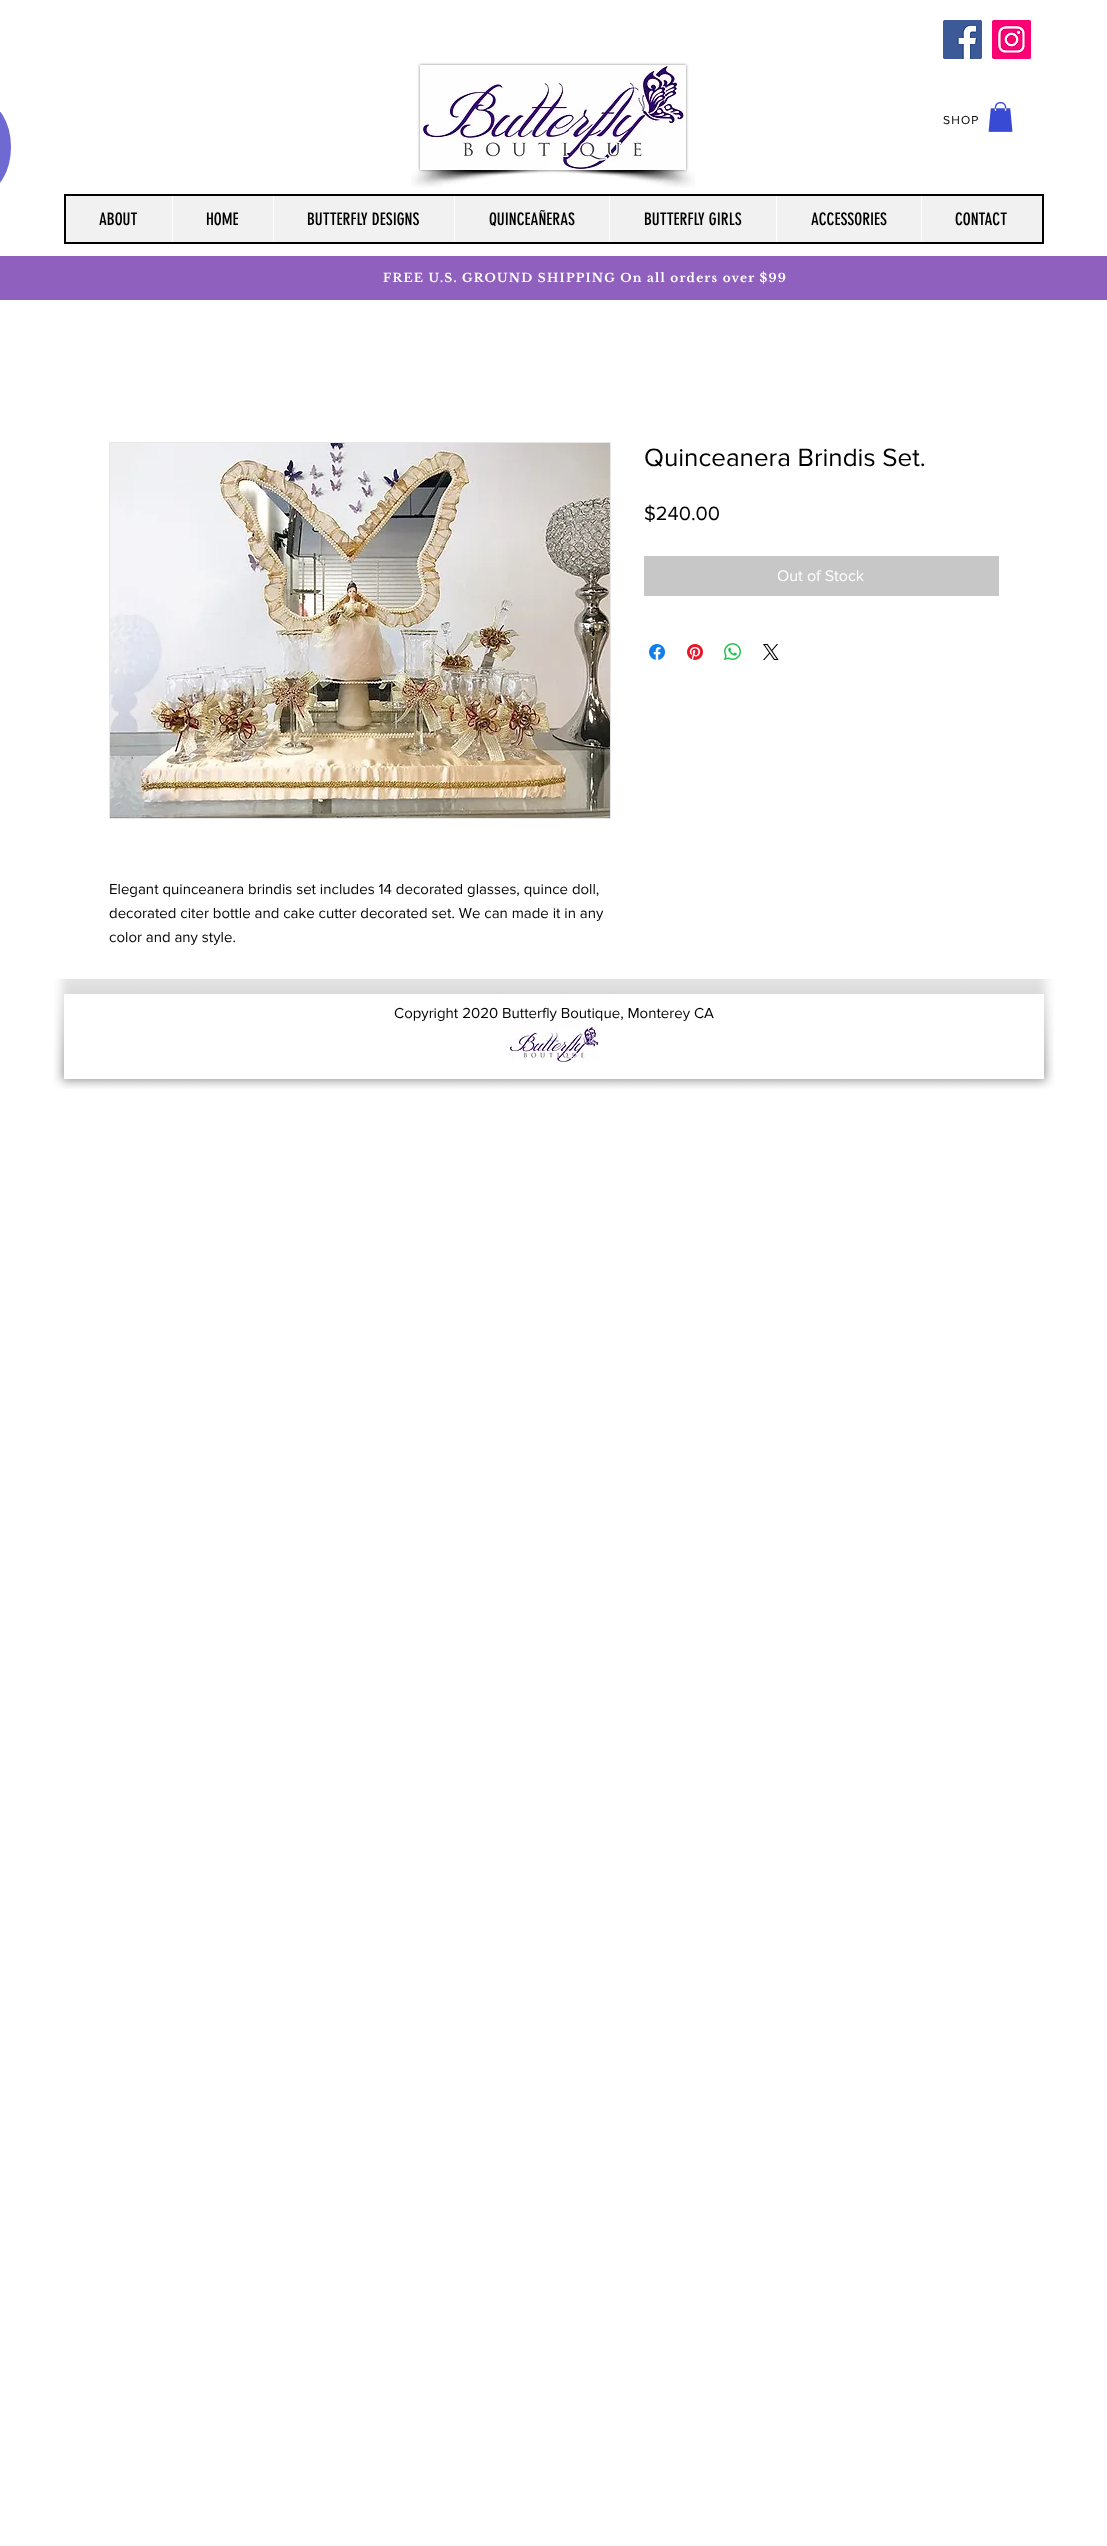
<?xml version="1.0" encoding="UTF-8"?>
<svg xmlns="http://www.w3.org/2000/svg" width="1107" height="2546">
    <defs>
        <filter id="blur1" x="-50%" y="-200%" width="200%" height="500%"><feGaussianBlur stdDeviation="1.5"/></filter>
    </defs>
    <rect width="100%" height="100%" fill="#FFFFFF"/>
    <image x="943" y="20" width="39" height="39" href="img_01.png"/>
    <image x="992" y="20" width="39" height="39" href="img_02.png"/>
    <rect x="-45" y="102" width="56" height="90" rx="45" fill="#6E6AD2"/>
    <rect x="420" y="65" width="266" height="105" fill="#000000" fill-opacity="0.5" filter="url(#blur1)"/>
    <image x="420" y="65" width="266" height="105" href="img_03.png"/>
    <image x="411" y="170" width="154" height="18" href="img_04.png"/>
    <image x="541" y="170" width="154" height="18" href="img_05.png"/>
    <text x="943" y="124" font-family="'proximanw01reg'" font-size="12" letter-spacing="1.2" fill="#000000">SHOP</text>
    <image x="988" y="102" width="25" height="30" href="img_06.png"/>
    <rect x="65" y="195" width="978" height="48" fill="#F1F1F1" stroke="#000000" stroke-width="2"/>
    <text x="99" y="225" font-family="'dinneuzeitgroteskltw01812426'" font-size="17" fill="#000000">ABOUT</text>
    <rect x="172" y="196" width="1" height="46" fill="#FFFFFF"/>
    <text x="206" y="225" font-family="'dinneuzeitgroteskltw01812426'" font-size="17" fill="#000000">HOME</text>
    <rect x="273" y="196" width="1" height="46" fill="#FFFFFF"/>
    <text x="307" y="225" font-family="'dinneuzeitgroteskltw01812426'" font-size="17" fill="#000000">BUTTERFLY DESIGNS</text>
    <rect x="454" y="196" width="1" height="46" fill="#FFFFFF"/>
    <text x="489" y="225" font-family="'dinneuzeitgroteskltw01812426'" font-size="17" fill="#000000">QUINCEAÑERAS</text>
    <rect x="609" y="196" width="1" height="46" fill="#FFFFFF"/>
    <text x="644" y="225" font-family="'dinneuzeitgroteskltw01812426'" font-size="17" fill="#000000">BUTTERFLY GIRLS</text>
    <rect x="776" y="196" width="1" height="46" fill="#FFFFFF"/>
    <text x="811" y="225" font-family="'dinneuzeitgroteskltw01812426'" font-size="17" fill="#000000">ACCESSORIES</text>
    <rect x="921" y="196" width="1" height="46" fill="#FFFFFF"/>
    <text x="955" y="225" font-family="'dinneuzeitgroteskltw01812426'" font-size="17" fill="#000000">CONTACT</text>
    <rect x="0" y="256" width="1107" height="44" fill="#8F60BD"/>
    <text x="383" y="282" font-family="Libre Baskerville" font-size="12" font-weight="700" letter-spacing="1.2" fill="#FFFFFF">FREE U.S. GROUND SHIPPING On all orders over $99</text>
    <text x="644" y="466" font-family="'proximanw01reg'" font-size="26" fill="#000000">Quinceanera Brindis Set.</text>
    <text x="644" y="520" font-family="'proximanw01reg'" font-size="20" fill="#000000">$240.00</text>
    <rect x="644" y="556" width="355" height="40" fill="#C7C7C7"/>
    <text x="777" y="581" font-family="'proximanw01reg'" font-size="16" fill="#FFFFFF">Out of Stock</text>
    <image x="649" y="644" width="16" height="16" href="img_07.png"/>
    <image x="687" y="644" width="16" height="16" href="img_08.png"/>
    <image x="724" y="643" width="17" height="17" href="img_09.png"/>
    <image x="763" y="644" width="16" height="16" href="img_10.png"/>
    <rect x="109.5" y="442.5" width="501" height="376" fill="none" stroke="#E8E6E6"/>
    <image x="110" y="443" width="500" height="375" href="img_11.png"/>
    <text font-family="'proximanw01reg'" font-size="15" fill="#000000">
        <tspan x="109" y="894">Elegant quinceanera brindis set includes 14 decorated glasses, quince doll,</tspan>
        <tspan x="109" y="918">decorated citer bottle and cake cutter decorated set. We can made it in any</tspan>
        <tspan x="109" y="942">color and any style.</tspan>
    </text>
    <image x="54" y="979" width="45" height="110" href="img_12.png"/>
    <image x="99" y="979" width="910" height="110" href="img_13.png"/>
    <image x="1009" y="979" width="45" height="110" href="img_14.png"/>
    <rect x="64" y="994" width="980" height="85" fill="#FFFFFF"/>
    <text x="394" y="1018" font-family="'proximanw01reg'" font-size="15" fill="#000000">Copyright 2020 Butterfly Boutique, Monterey CA</text>
    <image x="509" y="1021" width="90" height="41" href="img_15.png"/>
</svg>
